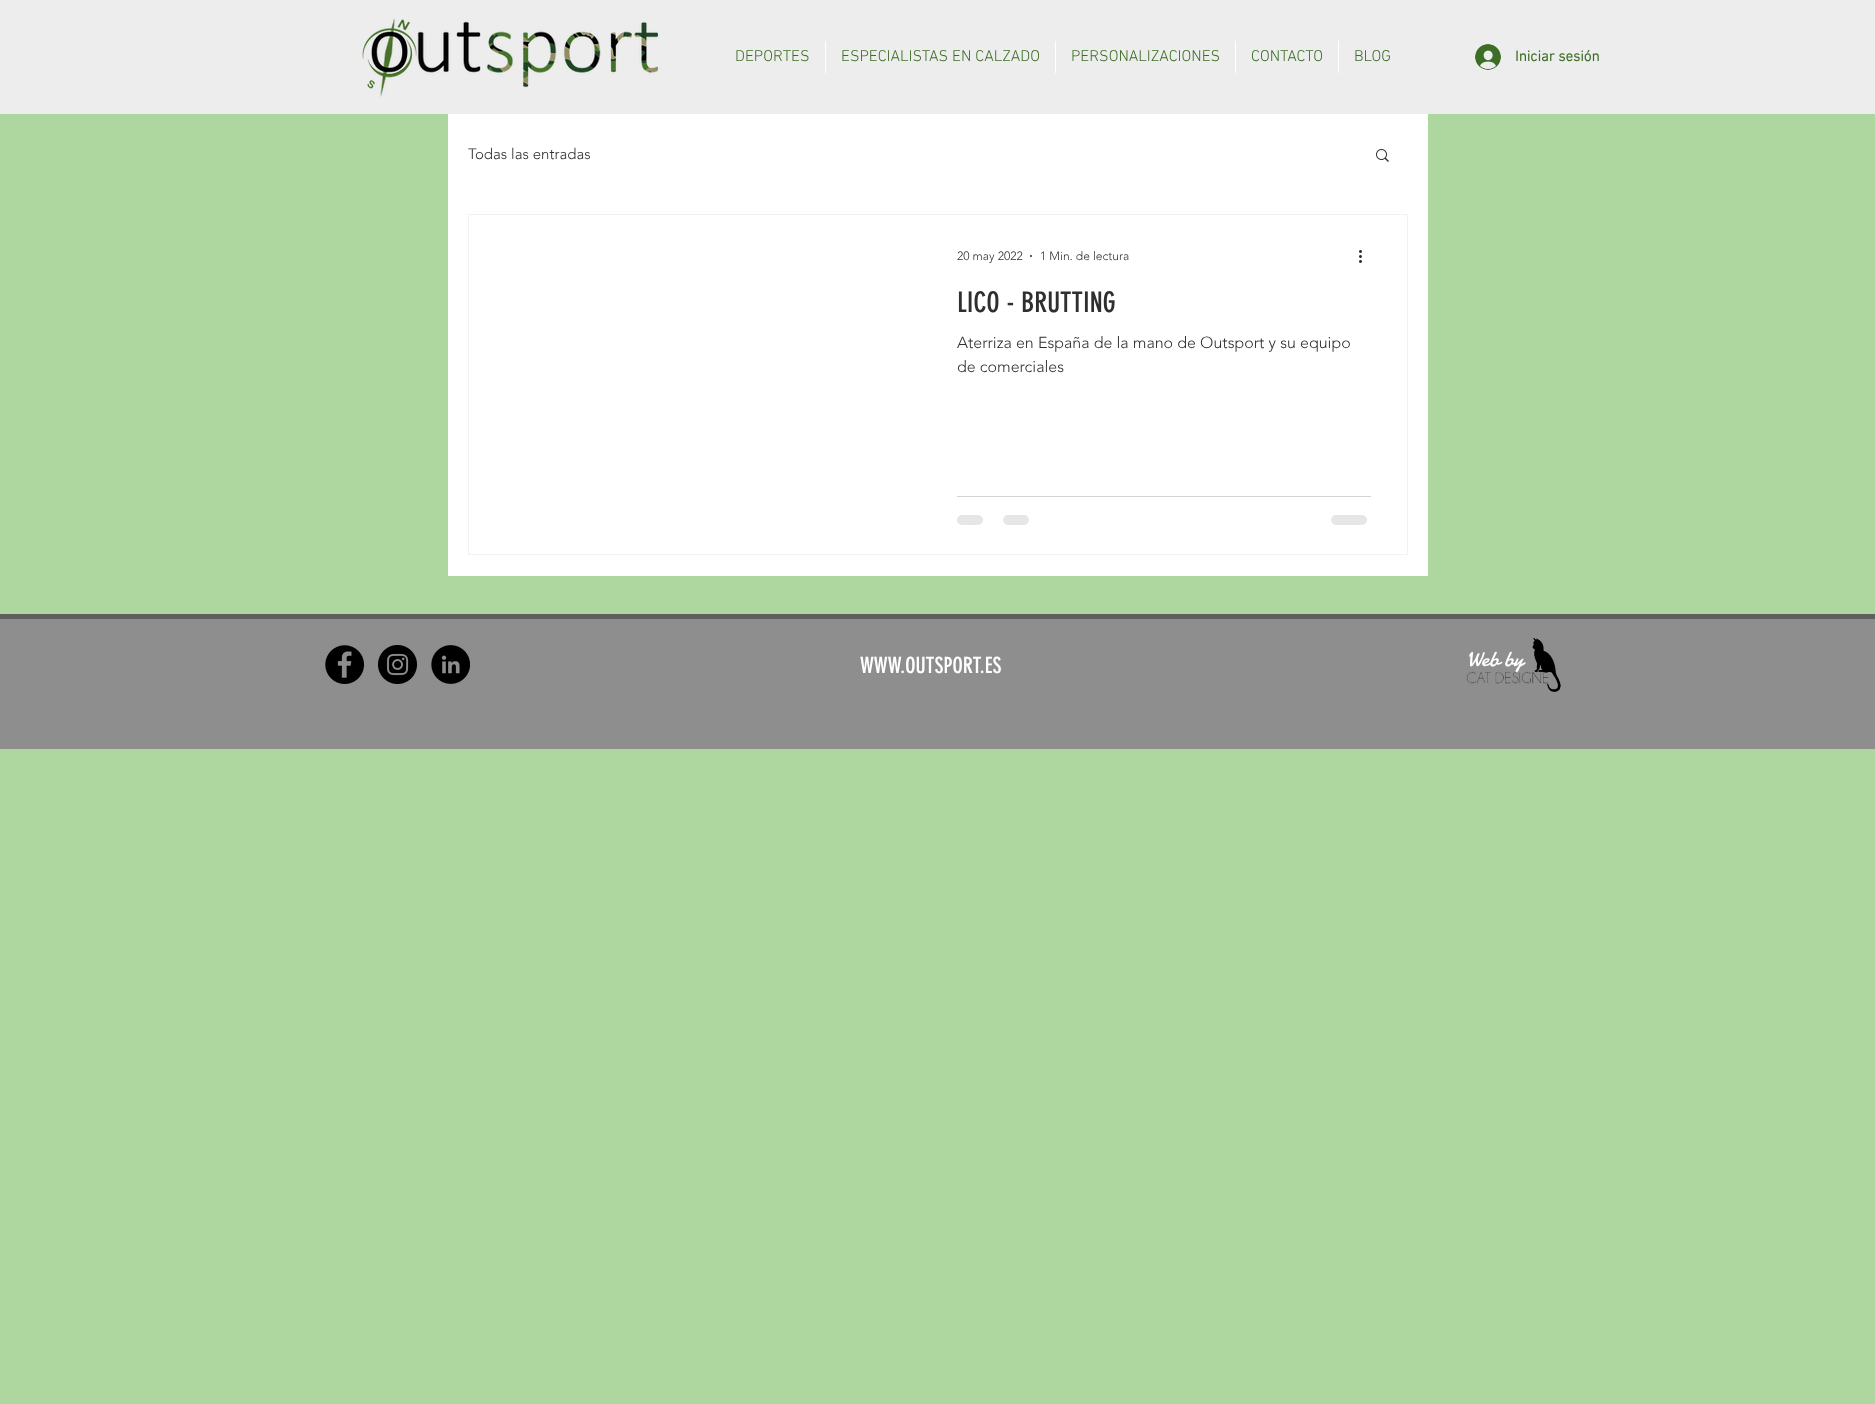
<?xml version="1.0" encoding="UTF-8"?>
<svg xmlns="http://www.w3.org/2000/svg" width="1875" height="1404">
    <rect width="100%" height="100%" fill="#AED69F"/>
    <rect x="0" y="0" width="1875" height="114" fill="#EDEDEE"/>
    <image x="362" y="18" width="297" height="79" href="img_01.png"/>
    <text x="735" y="61" font-family="'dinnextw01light'" font-size="16" font-weight="300" fill="#3D6E25">DEPORTES</text>
    <rect x="825" y="41" width="1" height="32" fill="#FFFFFF"/>
    <text x="841" y="61" font-family="'dinnextw01light'" font-size="16" font-weight="300" fill="#3D6E25">ESPECIALISTAS EN CALZADO</text>
    <rect x="1055" y="41" width="1" height="32" fill="#FFFFFF"/>
    <text x="1071" y="61" font-family="'dinnextw01light'" font-size="16" font-weight="300" fill="#3D6E25">PERSONALIZACIONES</text>
    <rect x="1235" y="41" width="1" height="32" fill="#FFFFFF"/>
    <text x="1251" y="61" font-family="'dinnextw01light'" font-size="16" font-weight="300" fill="#3D6E25">CONTACTO</text>
    <rect x="1338" y="41" width="1" height="32" fill="#FFFFFF"/>
    <text x="1354" y="61" font-family="'dinnextw01light'" font-size="16" font-weight="300" fill="#3D6E25">BLOG</text>
    <image x="1475" y="44" width="26" height="26" href="img_02.png"/>
    <text x="1515" y="61" font-family="'dinnextw01light'" font-size="15" font-weight="700" fill="#3D6E25">Iniciar sesión</text>
    <rect x="448" y="114" width="980" height="462" fill="#FFFFFF"/>
    <text x="468" y="159" font-family="'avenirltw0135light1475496'" font-size="15" font-weight="300" fill="#2F2F30">Todas las entradas</text>
    <image x="1376" y="149" width="13" height="13" href="img_03.png"/>
    <rect x="468.5" y="214.5" width="939" height="340" fill="none" stroke="#F2F2F2"/>
    <text x="957" y="260" font-family="'avenirltw0135light1475496'" font-size="12" font-weight="300" fill="#2F2F30">20 may 2022</text>
    <circle cx="1031" cy="256" r="1" fill="#2F2F30"/>
    <text x="1040" y="260" font-family="'avenirltw0135light1475496'" font-size="12" font-weight="300" fill="#2F2F30">1 Min. de lectura</text>
    <image x="1359" y="250" width="3" height="13" href="img_04.png"/>
    <text x="957" y="312" font-family="'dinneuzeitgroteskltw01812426'" font-size="28" fill="#2F2F30">LICO - BRUTTING</text>
    <text font-family="'avenirltw0135light1475496'" font-size="16" font-weight="300" fill="#2F2F30">
        <tspan x="957" y="348">Aterriza en España de la mano de Outsport y su equipo</tspan>
        <tspan x="957" y="372">de comerciales</tspan>
    </text>
    <rect x="957" y="496" width="414" height="1" fill="#D5D5D6"/>
    <rect x="957" y="515" width="26" height="10" rx="5" fill="#E6E6E6"/>
    <rect x="1003" y="515" width="26" height="10" rx="5" fill="#E6E6E6"/>
    <rect x="1331" y="515" width="36" height="10" rx="5" fill="#E6E6E6"/>
    <rect x="0" y="619" width="1875" height="130" fill="#8E8E8F"/>
    <rect x="0" y="614" width="1875" height="5" fill="#5F5F5F"/>
    <image x="325" y="645" width="39" height="39" href="img_05.png"/>
    <image x="378" y="645" width="39" height="39" href="img_06.png"/>
    <image x="431" y="645" width="39" height="39" href="img_07.png"/>
    <text x="1467" y="666" font-family="Damion" font-size="22" fill="#FFFFFF">Web by</text>
    <image x="1466" y="638" width="95" height="54" href="img_08.png"/>
    <text x="860" y="673" font-family="'dinneuzeitgroteskltw01812426'" font-size="22" fill="#FFFFFF">WWW.OUTSPORT.ES</text>
</svg>
